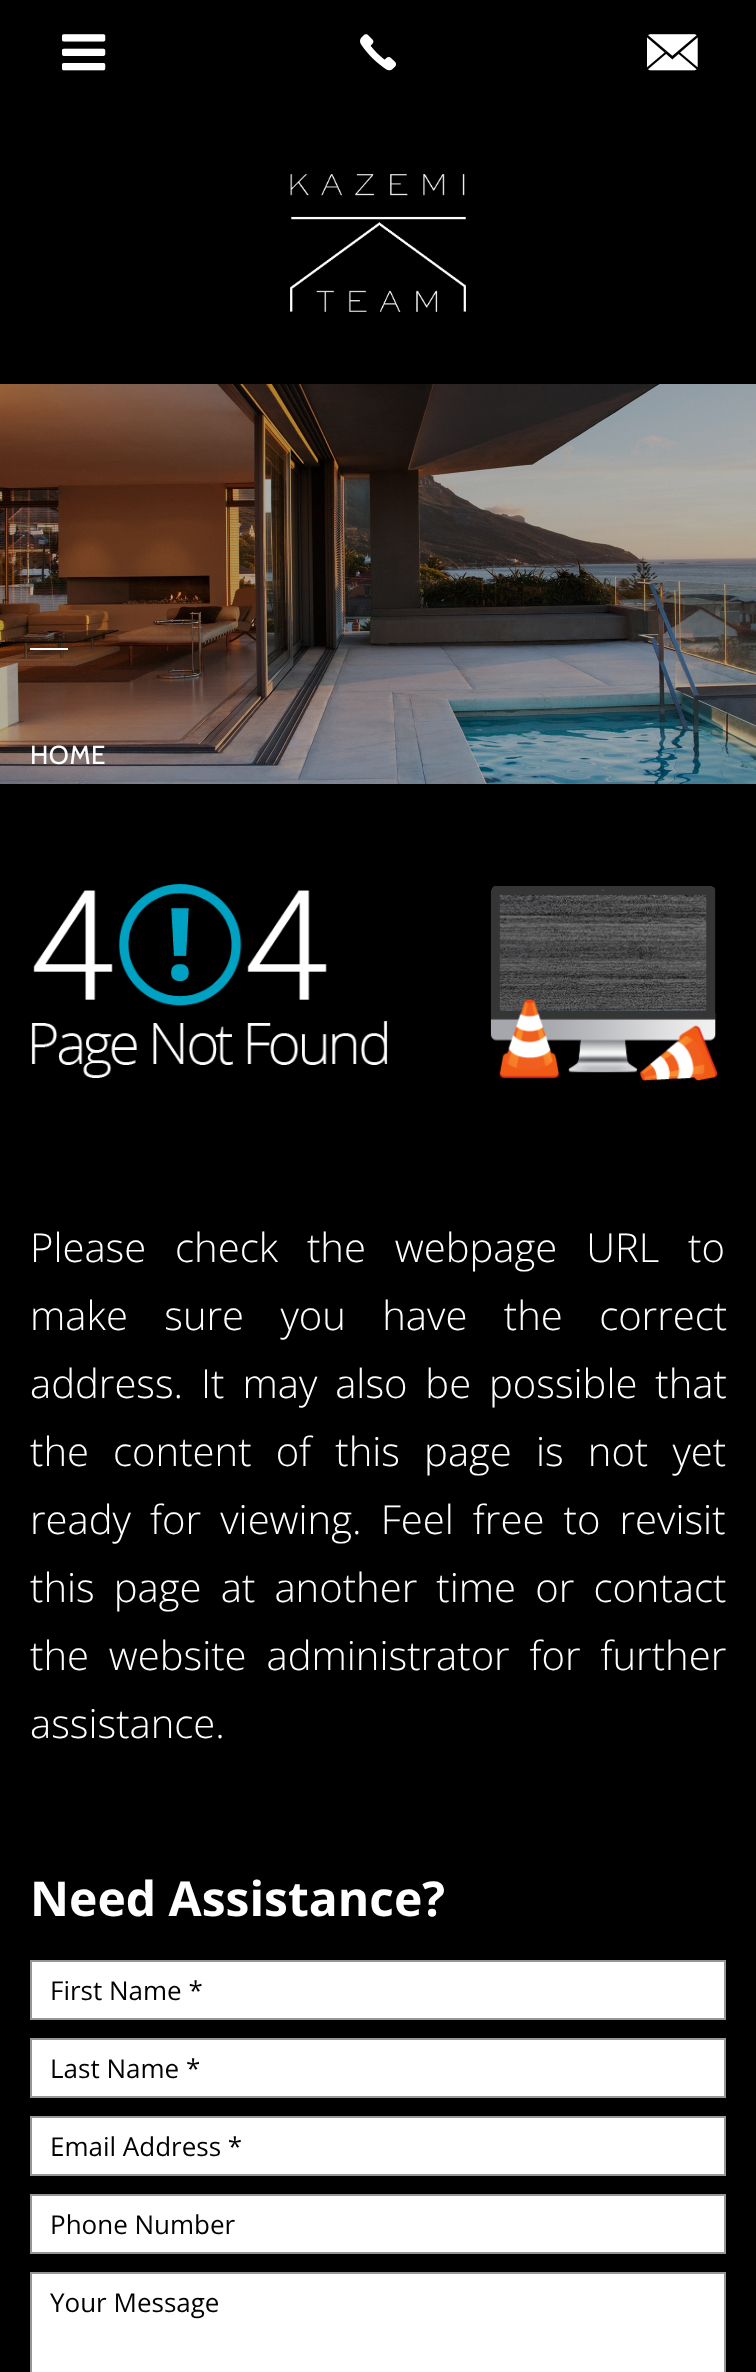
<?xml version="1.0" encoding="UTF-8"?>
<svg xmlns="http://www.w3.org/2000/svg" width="756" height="2372">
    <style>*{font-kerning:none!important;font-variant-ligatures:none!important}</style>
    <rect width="100%" height="100%" fill="#000000"/>
    <text x="62" y="68" font-family="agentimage" font-size="36" fill="#FFFFFF">򰁰</text>
    <text x="360" y="68" font-family="agentimage" font-size="36" fill="#FFFFFF">򰁩</text>
    <text x="647" y="68" font-family="agentimage" font-size="36" fill="#FFFFFF">򰄢</text>
    <image x="290" y="174" width="176" height="138" href="img_01.png"/>
    <image x="0" y="384" width="756" height="400" href="img_02.png"/>
    <rect x="30" y="648" width="38" height="2" fill="#FFFFFF"/>
    <text x="30" y="764" font-family="Cabin" font-size="26" letter-spacing="0.5" fill="#FFFFFF">HOME</text>
    <image x="31" y="884" width="357" height="194" href="img_03.png"/>
    <image x="490" y="886" width="228" height="196" href="img_04.png"/>
    <text font-family="Open Sans" font-size="40" font-weight="300" fill="#FFFFFF">
        <tspan x="30" y="1262" word-spacing="18.5">Please check the webpage URL to</tspan>
        <tspan x="30" y="1330" word-spacing="26">make sure you have the correct</tspan>
        <tspan x="30" y="1398" word-spacing="7.5">address. It may also be possible that</tspan>
        <tspan x="30" y="1466" word-spacing="13.75">the content of this page is not yet</tspan>
        <tspan x="30" y="1534" word-spacing="8.75">ready for viewing. Feel free to revisit</tspan>
        <tspan x="30" y="1602" word-spacing="8.75">this page at another time or contact</tspan>
        <tspan x="30" y="1670" word-spacing="9.5">the website administrator for further</tspan>
        <tspan x="30" y="1738">assistance.</tspan>
    </text>
    <text x="30" y="1916" font-family="Open Sans" font-size="48" font-weight="700" fill="#FFFFFF">Need Assistance?</text>
    <rect x="31" y="1961" width="694" height="58" fill="#FFFFFF" stroke="#969696" stroke-width="2"/>
    <text x="50" y="2000" font-family="Open Sans" font-size="26" fill="#000000">First Name *</text>
    <rect x="31" y="2039" width="694" height="58" fill="#FFFFFF" stroke="#969696" stroke-width="2"/>
    <text x="50" y="2078" font-family="Open Sans" font-size="26" fill="#000000">Last Name *</text>
    <rect x="31" y="2117" width="694" height="58" fill="#FFFFFF" stroke="#969696" stroke-width="2"/>
    <text x="50" y="2156" font-family="Open Sans" font-size="26" fill="#000000">Email Address *</text>
    <rect x="31" y="2195" width="694" height="58" fill="#FFFFFF" stroke="#969696" stroke-width="2"/>
    <text x="50" y="2234" font-family="Open Sans" font-size="26" fill="#000000">Phone Number</text>
    <rect x="31" y="2273" width="694" height="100" fill="#FFFFFF" stroke="#969696" stroke-width="2"/>
    <text x="50" y="2312" font-family="Open Sans" font-size="26" fill="#000000">Your Message</text>
</svg>
